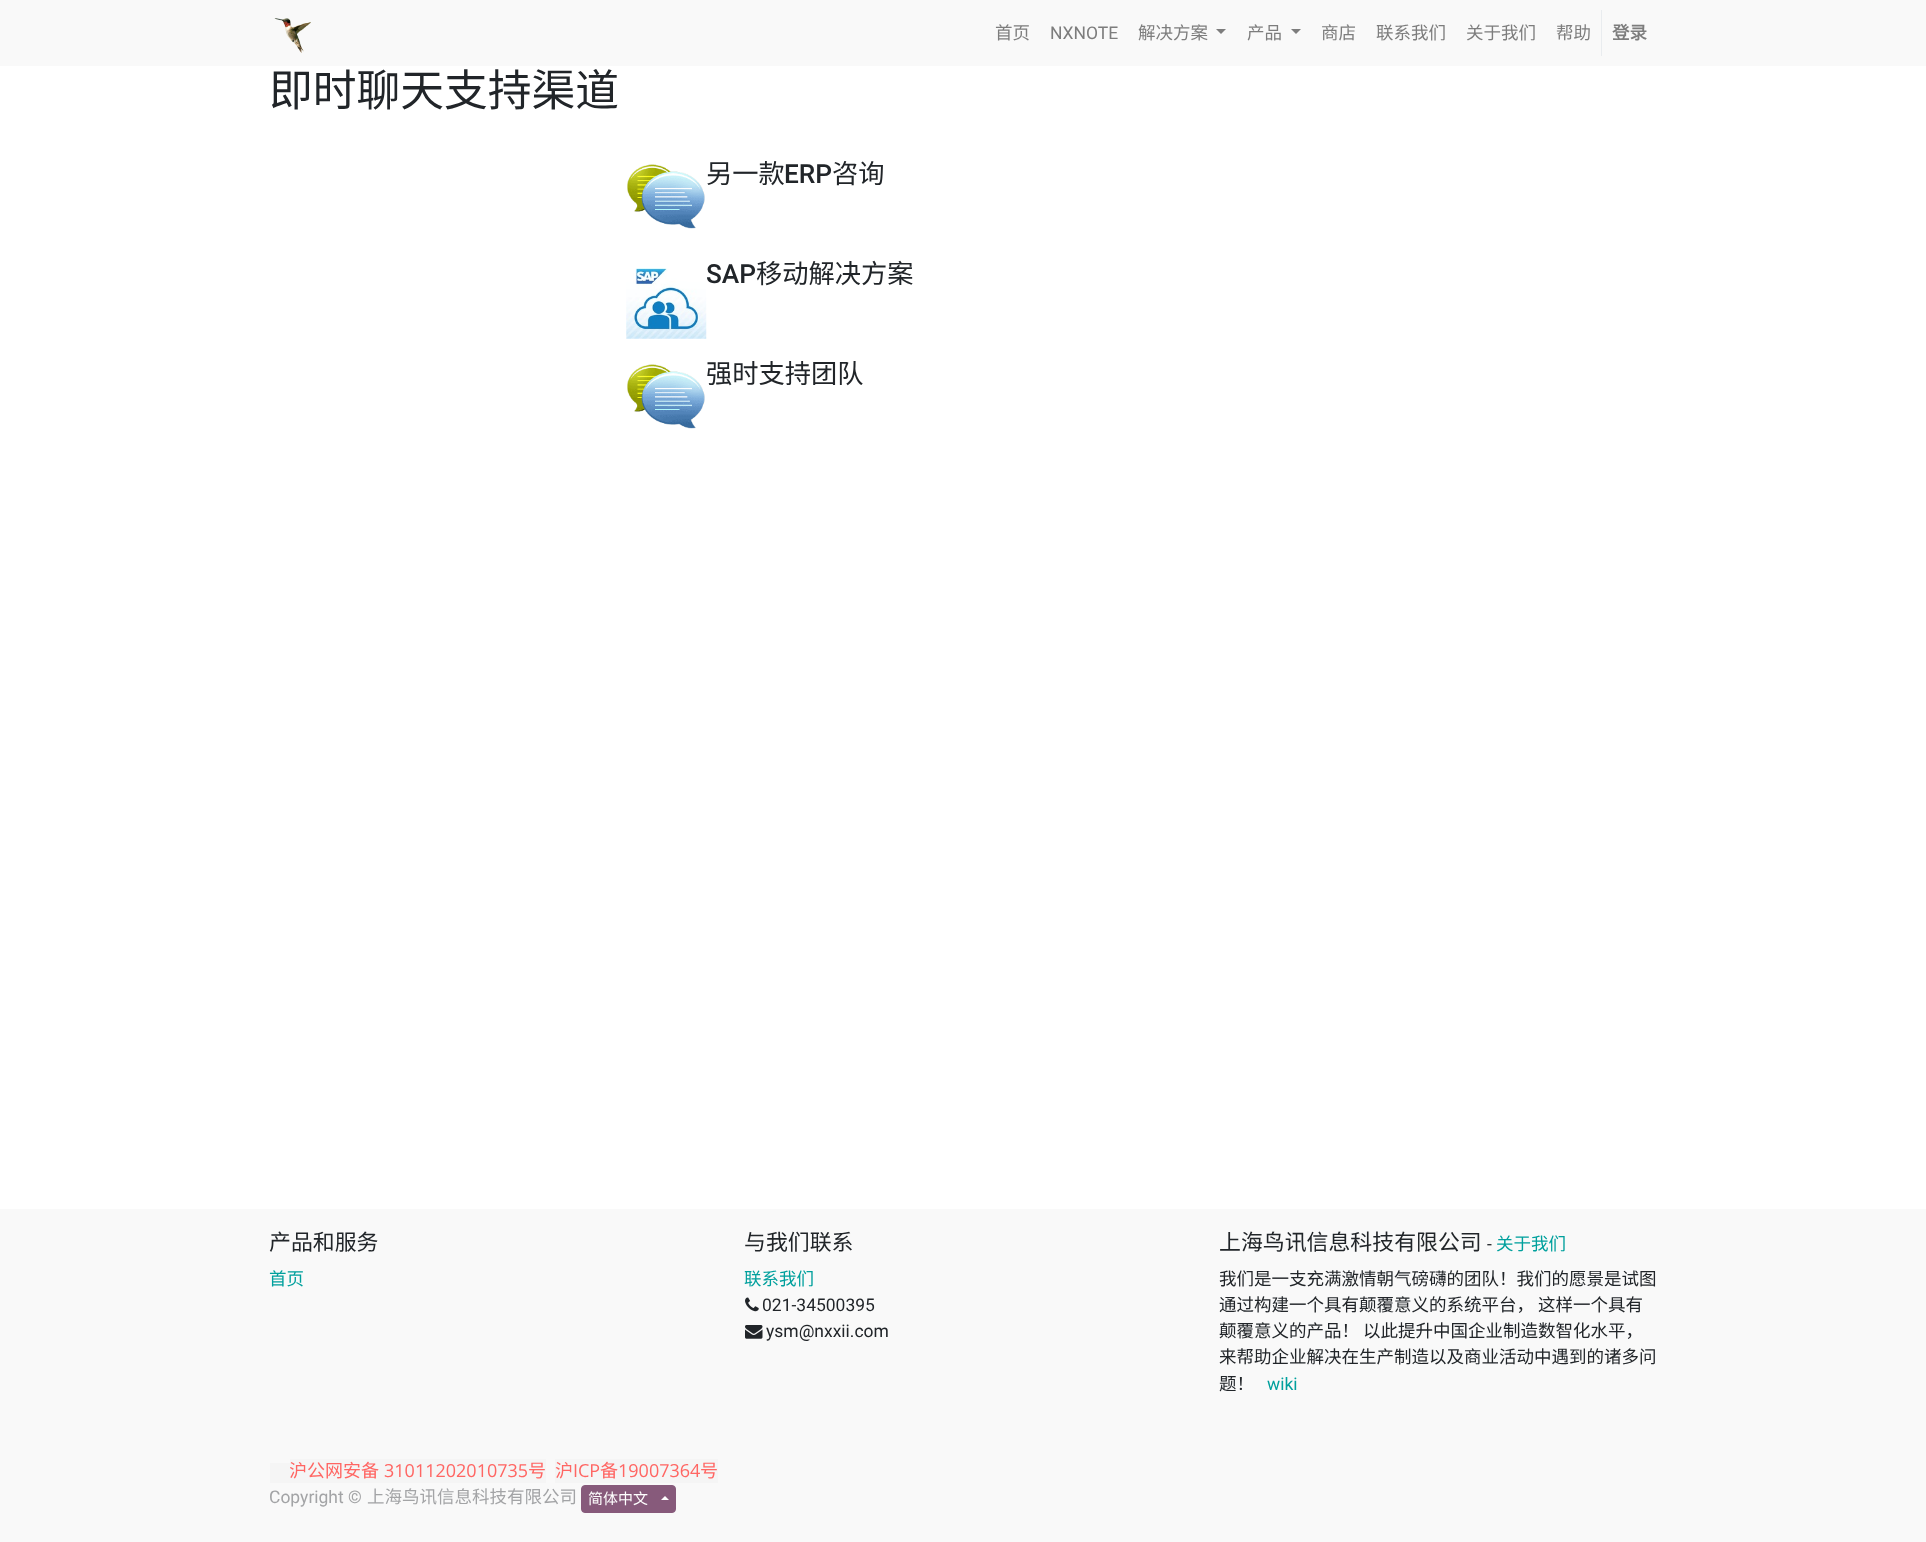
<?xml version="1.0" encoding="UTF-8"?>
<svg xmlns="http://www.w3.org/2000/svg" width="1926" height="1542">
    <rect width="100%" height="100%" fill="#FFFFFF"/>
    <rect x="0" y="0" width="1926" height="66" fill="#F9F9F9"/>
    <image x="274" y="18" width="37" height="35" href="img_01.png"/>
    <text x="995" y="39" font-family="Noto Sans CJK SC" font-size="17.5" fill="#7D7D7D">首页</text>
    <text x="1050" y="39" font-family="Roboto" font-size="17.5" fill="#7D7D7D">NXNOTE</text>
    <text x="1138" y="39" font-family="Noto Sans CJK SC" font-size="17.5" fill="#7D7D7D">解决方案</text>
    <path d="M 1216 29 H 1226 L 1221 34 Z" fill="#7D7D7D"/>
    <text x="1247" y="39" font-family="Noto Sans CJK SC" font-size="17.5" fill="#7D7D7D">产品</text>
    <path d="M 1291 29 H 1301 L 1296 34 Z" fill="#7D7D7D"/>
    <text x="1321" y="39" font-family="Noto Sans CJK SC" font-size="17.5" fill="#7D7D7D">商店</text>
    <text x="1376" y="39" font-family="Noto Sans CJK SC" font-size="17.5" fill="#7D7D7D">联系我们</text>
    <text x="1466" y="39" font-family="Noto Sans CJK SC" font-size="17.5" fill="#7D7D7D">关于我们</text>
    <text x="1556" y="39" font-family="Noto Sans CJK SC" font-size="17.5" fill="#7D7D7D">帮助</text>
    <rect x="1601" y="10" width="1" height="46" fill="#E9ECEF"/>
    <text x="1612" y="39" font-family="Noto Sans CJK SC" font-size="17.5" font-weight="700" fill="#7D7D7D">登录</text>
    <text x="269" y="106" font-family="Noto Sans CJK SC" font-size="43.75" fill="#212529">即时聊天支持渠道</text>
    <image x="627" y="164" width="78" height="65" href="img_02.png"/>
    <text x="706" y="183" font-family="Noto Sans CJK SC" font-size="26.25" fill="#212529">另一款</text>
    <text x="784" y="183" font-family="Roboto" font-size="26.25" font-weight="500" fill="#212529">ERP</text>
    <text x="832" y="183" font-family="Noto Sans CJK SC" font-size="26.25" fill="#212529">咨询</text>
    <image x="626" y="268" width="81" height="71" href="img_03.png"/>
    <text x="706" y="283" font-family="Roboto" font-size="26.25" font-weight="500" fill="#212529">SAP</text>
    <text x="756" y="283" font-family="Noto Sans CJK SC" font-size="26.25" fill="#212529">移动解决方案</text>
    <image x="627" y="364" width="78" height="65" href="img_02.png"/>
    <text x="706" y="383" font-family="Noto Sans CJK SC" font-size="26.25" fill="#212529">强时支持团队</text>
    <rect x="0" y="1209" width="1926" height="333" fill="#F9F9F9"/>
    <text x="269" y="1250" font-family="Noto Sans CJK SC" font-size="21.9" fill="#212529">产品和服务</text>
    <text x="269" y="1285" font-family="Noto Sans CJK SC" font-size="17.5" fill="#00A09D">首页</text>
    <text x="744" y="1250" font-family="Noto Sans CJK SC" font-size="21.9" fill="#212529">与我们联系</text>
    <text x="744" y="1285" font-family="Noto Sans CJK SC" font-size="17.5" fill="#00A09D">联系我们</text>
    <image x="745" y="1297" width="14" height="15" href="img_04.png"/>
    <text x="762" y="1311" font-family="Roboto" font-size="17.5" fill="#212529">021-34500395</text>
    <image x="745" y="1325" width="18" height="14" href="img_05.png"/>
    <text x="766" y="1337" font-family="Roboto" font-size="17.5" fill="#212529">ysm@nxxii.com</text>
    <text x="1219" y="1250" font-family="Noto Sans CJK SC" font-size="21.9" fill="#212529">上海鸟讯信息科技有限公司</text>
    <text x="1487" y="1250" font-family="Roboto" font-size="17.5" fill="#212529">-</text>
    <text x="1496" y="1250" font-family="Noto Sans CJK SC" font-size="17.5" fill="#00A09D">关于我们</text>
    <text font-family="Noto Sans CJK SC" font-size="17.5" fill="#212529">
        <tspan x="1219" y="1285">我们是一支充满激情朝气磅礴的团队！我们的愿景是试图</tspan>
        <tspan x="1219" y="1311">通过构建一个具有颠覆意义的系统平台， 这样一个具有</tspan>
        <tspan x="1219" y="1337">颠覆意义的产品！ 以此提升中国企业制造数智化水平，</tspan>
        <tspan x="1219" y="1363">来帮助企业解决在生产制造以及商业活动中遇到的诸多问</tspan>
        <tspan x="1219" y="1390">题！</tspan>
    </text>
    <text x="1267" y="1390" font-family="Roboto" font-size="17.5" fill="#00A09D">wiki</text>
    <rect x="290" y="1459" width="256" height="24" fill="#F5F5F5"/>
    <text x="289" y="1477" font-family="Noto Sans CJK SC" font-size="18" fill="#FF6663">沪公网安备</text>
    <rect x="270" y="1463" width="20" height="20" fill="#F5F5F5"/>
    <text x="384" y="1477" font-family="Open Sans" font-size="18" fill="#FF6663">31011202010735</text>
    <text x="528" y="1477" font-family="Noto Sans CJK SC" font-size="18" fill="#FF6663">号</text>
    <rect x="555" y="1459" width="163" height="24" fill="#F5F5F5"/>
    <text x="555" y="1477" font-family="Noto Sans CJK SC" font-size="18" fill="#FF6663">沪</text>
    <text x="573" y="1477" font-family="Open Sans" font-size="18" fill="#FF6663">ICP</text>
    <text x="600" y="1477" font-family="Noto Sans CJK SC" font-size="18" fill="#FF6663">备</text>
    <text x="618" y="1477" font-family="Open Sans" font-size="18" fill="#FF6663">19007364</text>
    <text x="700" y="1477" font-family="Noto Sans CJK SC" font-size="18" fill="#FF6663">号</text>
    <text x="269" y="1503" font-family="Roboto" font-size="17.5" fill="#A3A4A6">Copyright ©</text>
    <text x="367" y="1503" font-family="Noto Sans CJK SC" font-size="17.5" fill="#A3A4A6">上海鸟讯信息科技有限公司</text>
    <rect x="581.5" y="1485.5" width="94" height="27" rx="3.5" fill="#875A7B" stroke="#875A7B"/>
    <text x="588" y="1504" font-family="Noto Sans CJK SC" font-size="15" fill="#FFFFFF">简体中文</text>
    <path d="M 669 1500 H 661 L 665 1496 Z" fill="#FFFFFF"/>
</svg>
